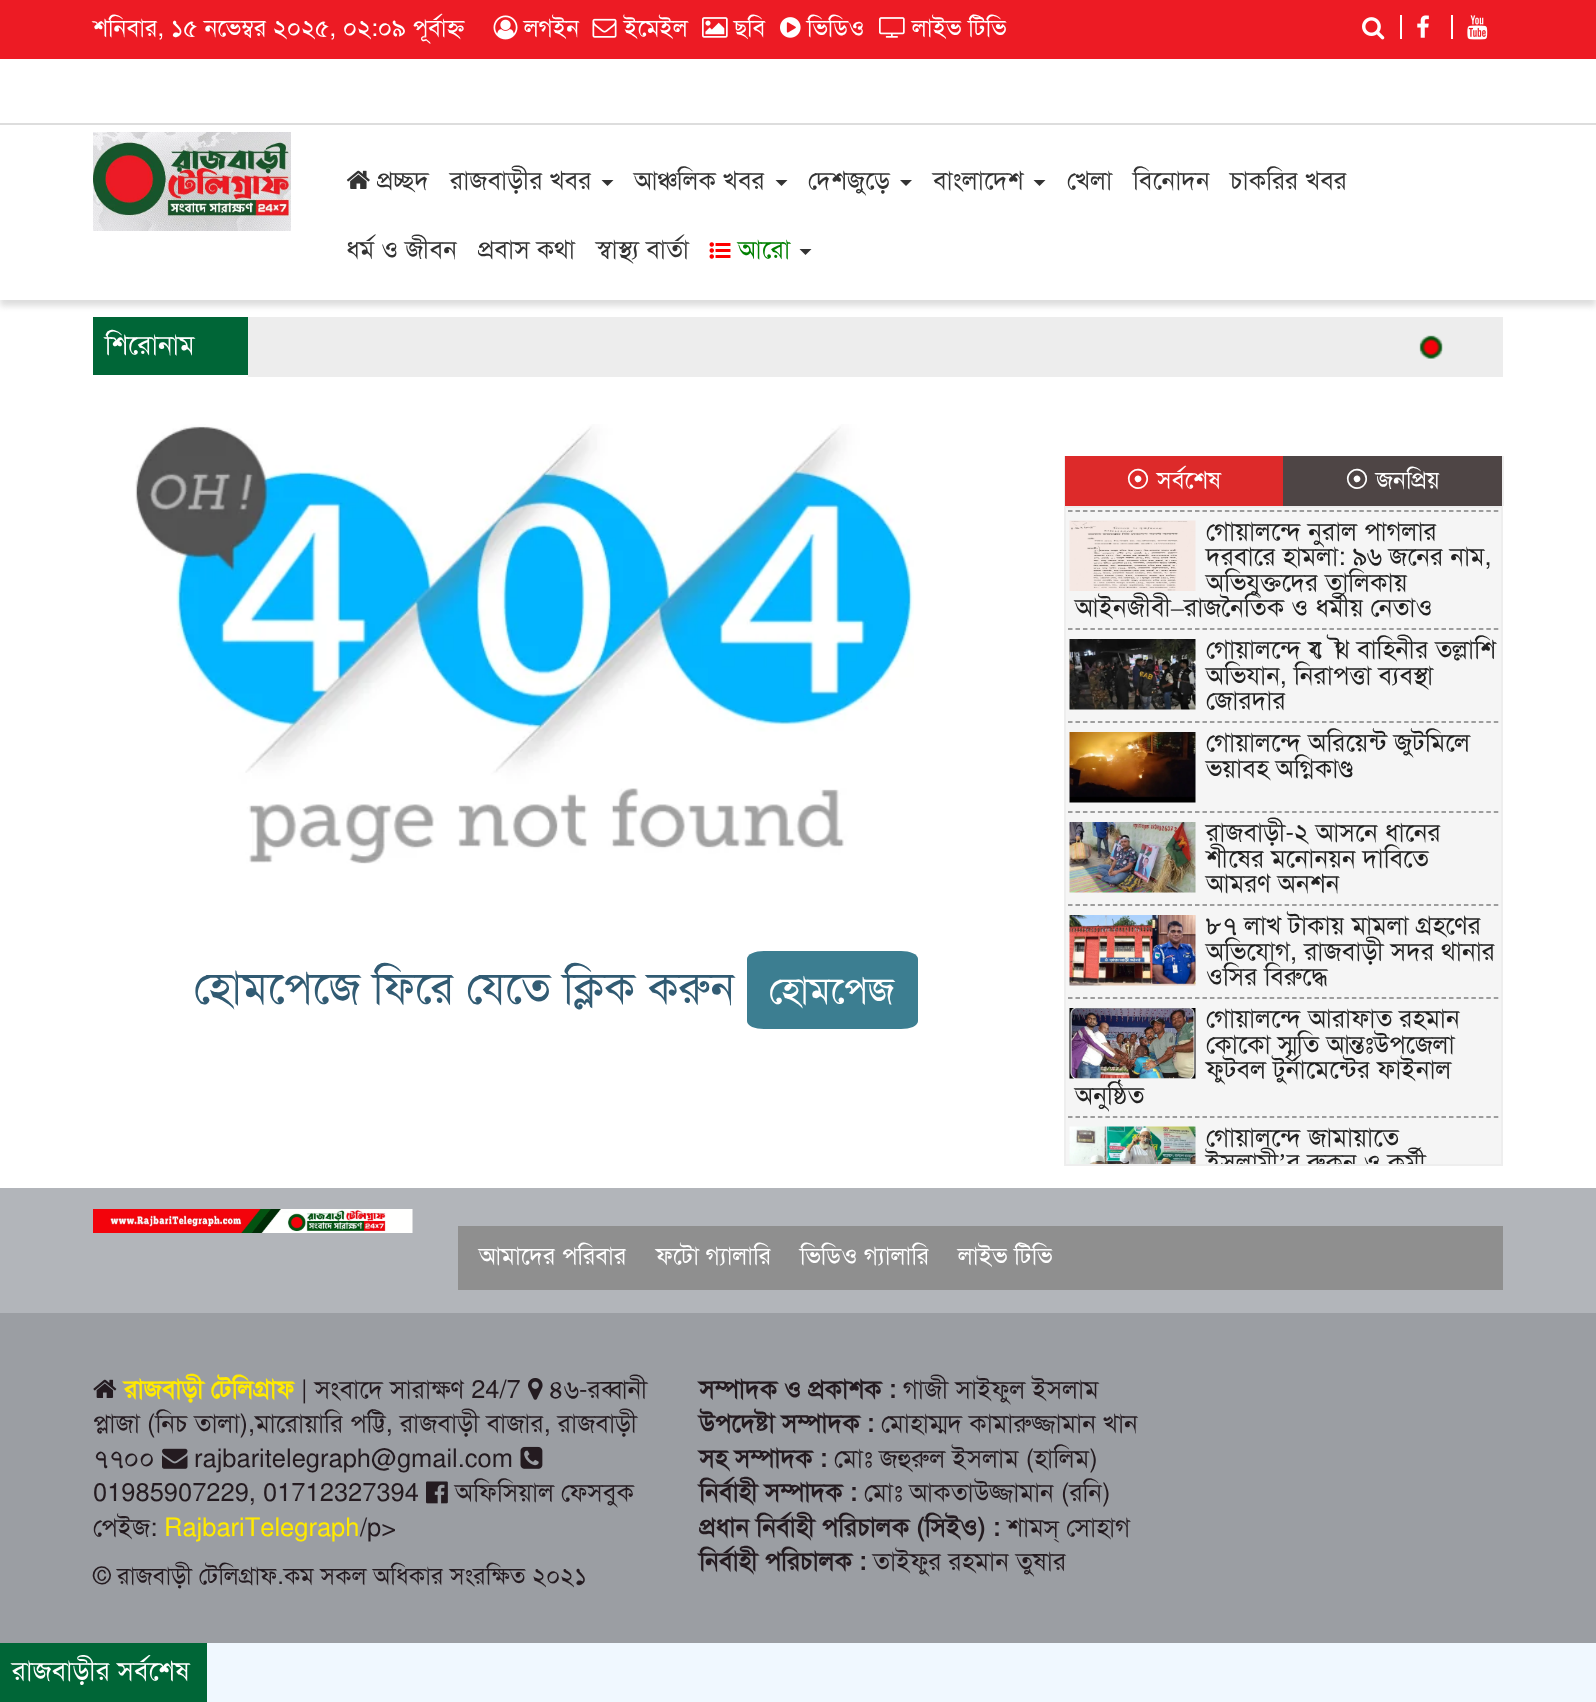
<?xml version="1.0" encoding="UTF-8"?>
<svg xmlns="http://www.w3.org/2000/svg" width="1596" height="1702">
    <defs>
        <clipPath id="clip1"><rect x="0" y="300" width="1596" height="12"/></clipPath>
        <filter id="blur1" x="-50%" y="-200%" width="200%" height="500%"><feGaussianBlur stdDeviation="3"/></filter>
        <clipPath id="clip2"><rect x="1068" y="1118" width="431" height="46"/></clipPath>
    </defs>
    <rect width="100%" height="100%" fill="#FFFFFF"/>
    <rect x="0" y="0" width="1596" height="59" fill="#ED1B24"/>
    <text x="93" y="36" font-family="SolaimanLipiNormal" font-size="24" fill="#FFFFFF">শনিবার, ১৫ নভেম্বর ২০২৫, ০২:০৯ পূর্বাহ্ন</text>
    <image x="493" y="15" width="25" height="25" href="img_01.png"/>
    <text x="524" y="36" font-family="SolaimanLipiNormal" font-size="24" fill="#FFFFFF">লগইন</text>
    <image x="592" y="18" width="25" height="20" href="img_02.png"/>
    <text x="624" y="36" font-family="SolaimanLipiNormal" font-size="24" fill="#FFFFFF">ইমেইল</text>
    <image x="702" y="17" width="26" height="21" href="img_03.png"/>
    <text x="734" y="36" font-family="SolaimanLipiNormal" font-size="24" fill="#FFFFFF">ছবি</text>
    <image x="780" y="17" width="21" height="21" href="img_04.png"/>
    <text x="807" y="36" font-family="SolaimanLipiNormal" font-size="24" fill="#FFFFFF">ভিডিও</text>
    <image x="879" y="17" width="26" height="21" href="img_05.png"/>
    <text x="912" y="36" font-family="SolaimanLipiNormal" font-size="24" fill="#FFFFFF">লাইভ টিভি</text>
    <image x="1362" y="17" width="23" height="23" href="img_06.png"/>
    <rect x="1400" y="15" width="2" height="24" fill="#FFFFFF"/>
    <image x="1417" y="15" width="12" height="23" href="img_07.png"/>
    <rect x="1451" y="15" width="2" height="24" fill="#FFFFFF"/>
    <image x="1467" y="15" width="21" height="25" href="img_08.png"/>
    <g clip-path="url(#clip1)">
        <rect x="0" y="129" width="1596" height="177" fill="#DDDDDD" filter="url(#blur1)"/>
    </g>
    <rect x="0" y="123" width="1596" height="2" fill="#DDDDDD"/>
    <image x="93" y="132" width="198" height="99" href="img_09.png"/>
    <image x="346" y="170" width="24" height="19" href="img_10.png"/>
    <text x="377" y="189" font-family="SolaimanLipiNormal" font-size="25.5" fill="#333333">প্রচ্ছদ</text>
    <text x="450" y="189" font-family="SolaimanLipiNormal" font-size="25.5" fill="#333333">রাজবাড়ীর খবর</text>
    <path d="M 601.5 180 H 613.5 L 607.5 186 Z" fill="#333333"/>
    <text x="634" y="189" font-family="SolaimanLipiNormal" font-size="25.5" fill="#333333">আঞ্চলিক খবর</text>
    <path d="M 775.5 180 H 787.5 L 781.5 186 Z" fill="#333333"/>
    <text x="808" y="189" font-family="SolaimanLipiNormal" font-size="25.5" fill="#333333">দেশজুড়ে</text>
    <path d="M 900 180 H 912 L 906 186 Z" fill="#333333"/>
    <text x="933" y="189" font-family="SolaimanLipiNormal" font-size="25.5" fill="#333333">বাংলাদেশ</text>
    <path d="M 1033.5 180 H 1045.5 L 1039.5 186 Z" fill="#333333"/>
    <text x="1067" y="189" font-family="SolaimanLipiNormal" font-size="25.5" fill="#333333">খেলা</text>
    <text x="1133" y="189" font-family="SolaimanLipiNormal" font-size="25.5" fill="#333333">বিনোদন</text>
    <text x="1230" y="189" font-family="SolaimanLipiNormal" font-size="25.5" fill="#333333">চাকরির খবর</text>
    <text x="346" y="258" font-family="SolaimanLipiNormal" font-size="25.5" fill="#333333">ধর্ম ও জীবন</text>
    <text x="478" y="258" font-family="SolaimanLipiNormal" font-size="25.5" fill="#333333">প্রবাস কথা</text>
    <text x="596" y="258" font-family="SolaimanLipiNormal" font-size="25.5" fill="#333333">স্বাস্থ্য বার্তা</text>
    <image x="709" y="242" width="22" height="17" href="img_11.png"/>
    <text x="738" y="258" font-family="SolaimanLipiNormal" font-size="25.5" fill="#008000">আরো</text>
    <path d="M 799.5 249 H 811.5 L 805.5 255 Z" fill="#333333"/>
    <rect x="93" y="317" width="155" height="58" fill="#006637"/>
    <text x="105" y="354" font-family="SolaimanLipiNormal" font-size="27" fill="#FFFFFF">শিরোনাম</text>
    <rect x="248" y="317" width="1255" height="60" fill="#EDEDED"/>
    <image x="1419" y="335" width="24" height="24" href="img_12.png"/>
    <image x="135" y="424" width="779" height="440" href="img_13.png"/>
    <text x="194" y="1003" font-family="SolaimanLipiNormal" font-size="45" fill="#315B73">হোমপেজে ফিরে যেতে ক্লিক করুন</text>
    <path d="M 764 951 H 901 C 910 951 918 954 918 959 V 1021 C 918 1026 910 1029 901 1029 H 764 C 755 1029 747 1026 747 1021 V 959 C 747 954 755 951 764 951 Z" fill="#3C7E91"/>
    <text x="769" y="1003" font-family="SolaimanLipiNormal" font-size="37.5" fill="#FFFFFF">হোমপেজ</text>
    <rect x="1283" y="456" width="219" height="50" fill="#4E4545"/>
    <rect x="1502" y="456" width="2" height="50" fill="#EEEEEE"/>
    <rect x="1064" y="456" width="1" height="50" fill="#EEEEEE"/>
    <rect x="1065" y="456" width="218" height="50" fill="#DD2A2A"/>
    <text x="1126" y="488" font-family="IPAGothic" font-size="24" fill="#FFFFFF">⦿</text>
    <text x="1157" y="488" font-family="SolaimanLipiNormal" font-size="24" fill="#FFFFFF">সর্বশেষ</text>
    <text x="1345" y="488" font-family="IPAGothic" font-size="24" fill="#FFFFFF">⦿</text>
    <text x="1376" y="488" font-family="SolaimanLipiNormal" font-size="24" fill="#FFFFFF">জনপ্রিয়</text>
    <rect x="1065" y="507" width="437" height="658" fill="#F5F5F5" stroke="#EEEEEE" stroke-width="2"/>
    <path d="M 1068 511 H 1498.5" fill="none" stroke="#808080" stroke-width="1.5" stroke-dasharray="4.5 2.97"/>
    <image x="1069" y="520" width="127" height="71" href="img_14.png"/>
    <text font-family="SolaimanLipiNormal" font-size="25.5" fill="#222222">
        <tspan x="1206" y="540">গোয়ালন্দে নুরাল পাগলার</tspan>
        <tspan x="1206" y="565">দরবারে হামলা: ৯৬ জনের নাম,</tspan>
        <tspan x="1206" y="591">অভিযুক্তদের তালিকায়</tspan>
    </text>
    <text x="1075" y="616" font-family="SolaimanLipiNormal" font-size="25.5" fill="#222222">আইনজীবী</text>
    <text x="1171" y="616" font-family="Liberation Serif" font-size="25.5" fill="#222222">–</text>
    <text x="1184" y="616" font-family="SolaimanLipiNormal" font-size="25.5" fill="#222222">রাজনৈতিক ও ধর্মীয় নেতাও</text>
    <path d="M 1068 629 H 1498.5" fill="none" stroke="#808080" stroke-width="1.5" stroke-dasharray="4.5 2.97"/>
    <image x="1069" y="639" width="127" height="71" href="img_15.png"/>
    <text font-family="SolaimanLipiNormal" font-size="25.5" fill="#222222">
        <tspan x="1206" y="658">গোয়ালন্দে যৌথ বাহিনীর তল্লাশি</tspan>
        <tspan x="1206" y="684">অভিযান, নিরাপত্তা ব্যবস্থা</tspan>
        <tspan x="1206" y="709">জোরদার</tspan>
    </text>
    <path d="M 1068 722 H 1498.5" fill="none" stroke="#808080" stroke-width="1.5" stroke-dasharray="4.5 2.97"/>
    <image x="1069" y="732" width="127" height="71" href="img_16.png"/>
    <text font-family="SolaimanLipiNormal" font-size="25.5" fill="#222222">
        <tspan x="1206" y="751">গোয়ালন্দে অরিয়েন্ট জুটমিলে</tspan>
        <tspan x="1206" y="777">ভয়াবহ অগ্নিকাণ্ড</tspan>
    </text>
    <path d="M 1068 812 H 1498.5" fill="none" stroke="#808080" stroke-width="1.5" stroke-dasharray="4.5 2.97"/>
    <image x="1069" y="822" width="127" height="71" href="img_17.png"/>
    <text font-family="SolaimanLipiNormal" font-size="25.5" fill="#222222">
        <tspan x="1206" y="841">রাজবাড়ী-২ আসনে ধানের</tspan>
        <tspan x="1206" y="867">শীষের মনোনয়ন দাবিতে</tspan>
        <tspan x="1206" y="892">আমরণ অনশন</tspan>
    </text>
    <path d="M 1068 905 H 1498.5" fill="none" stroke="#808080" stroke-width="1.5" stroke-dasharray="4.5 2.97"/>
    <image x="1069" y="915" width="127" height="71" href="img_18.png"/>
    <text font-family="SolaimanLipiNormal" font-size="25.5" fill="#222222">
        <tspan x="1206" y="934">৮৭ লাখ টাকায় মামলা গ্রহণের</tspan>
        <tspan x="1206" y="960">অভিযোগ, রাজবাড়ী সদর থানার</tspan>
        <tspan x="1206" y="985">ওসির বিরুদ্ধে</tspan>
    </text>
    <path d="M 1068 998 H 1498.5" fill="none" stroke="#808080" stroke-width="1.5" stroke-dasharray="4.5 2.97"/>
    <image x="1069" y="1008" width="127" height="71" href="img_19.png"/>
    <text font-family="SolaimanLipiNormal" font-size="25.5" fill="#222222">
        <tspan x="1206" y="1027">গোয়ালন্দে আরাফাত রহমান</tspan>
        <tspan x="1206" y="1053">কোকো স্মৃতি আন্তঃউপজেলা</tspan>
        <tspan x="1206" y="1078">ফুটবল টুর্নামেন্টের ফাইনাল</tspan>
    </text>
    <text x="1075" y="1104" font-family="SolaimanLipiNormal" font-size="25.5" fill="#222222">অনুষ্ঠিত</text>
    <path d="M 1068 1117 H 1498.5" fill="none" stroke="#808080" stroke-width="1.5" stroke-dasharray="4.5 2.97"/>
    <image x="1069" y="1126" width="127" height="38" href="img_20.png"/>
    <text x="1206" y="1146" font-family="SolaimanLipiNormal" font-size="25.5" fill="#222222">গোয়ালন্দে জামায়াতে</text>
    <g clip-path="url(#clip2)">
        <text x="1206" y="1171" font-family="SolaimanLipiNormal" font-size="25.5" fill="#222222">ইসলামী</text>
    </g>
    <text x="1278" y="1171" font-family="Liberation Serif" font-size="25.5" fill="#222222">’</text>
    <g clip-path="url(#clip2)">
        <text x="1287" y="1171" font-family="SolaimanLipiNormal" font-size="25.5" fill="#222222">র রুকন ও কর্মী</text>
    </g>
    <rect x="0" y="1188" width="1596" height="125" fill="#B2B5BA"/>
    <image x="93" y="1209" width="320" height="24" href="img_21.png"/>
    <rect x="458" y="1226" width="1045" height="64" fill="#8F8F8F"/>
    <text x="479" y="1264" font-family="SolaimanLipiNormal" font-size="24" fill="#FFFFFF">আমাদের পরিবার</text>
    <text x="656" y="1264" font-family="SolaimanLipiNormal" font-size="24" fill="#FFFFFF">ফটো গ্যালারি</text>
    <text x="800" y="1264" font-family="SolaimanLipiNormal" font-size="24" fill="#FFFFFF">ভিডিও গ্যালারি</text>
    <text x="958" y="1264" font-family="SolaimanLipiNormal" font-size="24" fill="#FFFFFF">লাইভ টিভি</text>
    <rect x="0" y="1313" width="1596" height="330" fill="#9B9EA3"/>
    <image x="93" y="1379" width="24" height="19" href="img_22.png"/>
    <text x="124" y="1398" font-family="SolaimanLipiNormal" font-size="25.5" font-weight="700" fill="#FFE900">রাজবাড়ী টেলিগ্রাফ</text>
    <text x="301" y="1398" font-family="SolaimanLipiNormal" font-size="25.5" fill="#241B20">| সংবাদে সারাক্ষণ 24/7</text>
    <image x="528" y="1378" width="15" height="22" href="img_23.png"/>
    <text x="549" y="1398" font-family="SolaimanLipiNormal" font-size="25.5" fill="#241B20">৪৬-রব্বানী</text>
    <text font-family="SolaimanLipiNormal" font-size="25.5" fill="#241B20">
        <tspan x="93" y="1432">প্লাজা (নিচ তালা),মারোয়ারি পট্টি, রাজবাড়ী বাজার, রাজবাড়ী</tspan>
        <tspan x="93" y="1467">৭৭০০</tspan>
    </text>
    <image x="162" y="1448" width="26" height="21" href="img_24.png"/>
    <text x="194" y="1467" font-family="SolaimanLipiNormal" font-size="25.5" fill="#241B20">rajbaritelegraph@gmail.com</text>
    <image x="520" y="1446" width="23" height="23" href="img_25.png"/>
    <text x="93" y="1501" font-family="SolaimanLipiNormal" font-size="25.5" fill="#241B20">01985907229, 01712327394</text>
    <image x="426" y="1481" width="22" height="23" href="img_26.png"/>
    <text x="455" y="1501" font-family="SolaimanLipiNormal" font-size="25.5" fill="#241B20">অফিসিয়াল ফেসবুক</text>
    <text x="93" y="1536" font-family="SolaimanLipiNormal" font-size="25.5" fill="#241B20">পেইজ:</text>
    <text x="164" y="1536" font-family="SolaimanLipiNormal" font-size="25.5" fill="#FFE900">RajbariTelegraph</text>
    <text x="360" y="1536" font-family="SolaimanLipiNormal" font-size="25.5" fill="#241B20">/p&gt;</text>
    <text x="93" y="1584" font-family="SolaimanLipiNormal" font-size="24" fill="#241B20">© রাজবাড়ী টেলিগ্রাফ.কম সকল অধিকার সংরক্ষিত ২০২১</text>
    <text x="699" y="1398" font-family="SolaimanLipiNormal" font-size="25.5" font-weight="700" fill="#241B20">সম্পাদক ও প্রকাশক :</text>
    <text x="903" y="1398" font-family="SolaimanLipiNormal" font-size="25.5" fill="#241B20">গাজী সাইফুল ইসলাম</text>
    <text x="699" y="1432" font-family="SolaimanLipiNormal" font-size="25.5" font-weight="700" fill="#241B20">উপদেষ্টা সম্পাদক :</text>
    <text x="881" y="1432" font-family="SolaimanLipiNormal" font-size="25.5" fill="#241B20">মোহাম্মদ কামারুজ্জামান খান</text>
    <text x="699" y="1467" font-family="SolaimanLipiNormal" font-size="25.5" font-weight="700" fill="#241B20">সহ সম্পাদক :</text>
    <text x="834" y="1467" font-family="SolaimanLipiNormal" font-size="25.5" fill="#241B20">মোঃ জহুরুল ইসলাম (হালিম)</text>
    <text x="699" y="1501" font-family="SolaimanLipiNormal" font-size="25.5" font-weight="700" fill="#241B20">নির্বাহী সম্পাদক :</text>
    <text x="864" y="1501" font-family="SolaimanLipiNormal" font-size="25.5" fill="#241B20">মোঃ আকতাউজ্জামান (রনি)</text>
    <text x="699" y="1536" font-family="SolaimanLipiNormal" font-size="25.5" font-weight="700" fill="#241B20">প্রধান নির্বাহী পরিচালক (সিইও) :</text>
    <text x="1007" y="1536" font-family="SolaimanLipiNormal" font-size="25.5" fill="#241B20">শামস্ সোহাগ</text>
    <text x="699" y="1570" font-family="SolaimanLipiNormal" font-size="25.5" font-weight="700" fill="#241B20">নির্বাহী পরিচালক :</text>
    <text x="873" y="1570" font-family="SolaimanLipiNormal" font-size="25.5" fill="#241B20">তাইফুর রহমান তুষার</text>
    <rect x="207" y="1643" width="1389" height="59" fill="#F0F8FF"/>
    <rect x="0" y="1643" width="207" height="59" fill="#006637"/>
    <text x="12" y="1680" font-family="SolaimanLipiNormal" font-size="27" fill="#FFFFFF">রাজবাড়ীর সর্বশেষ</text>
</svg>
